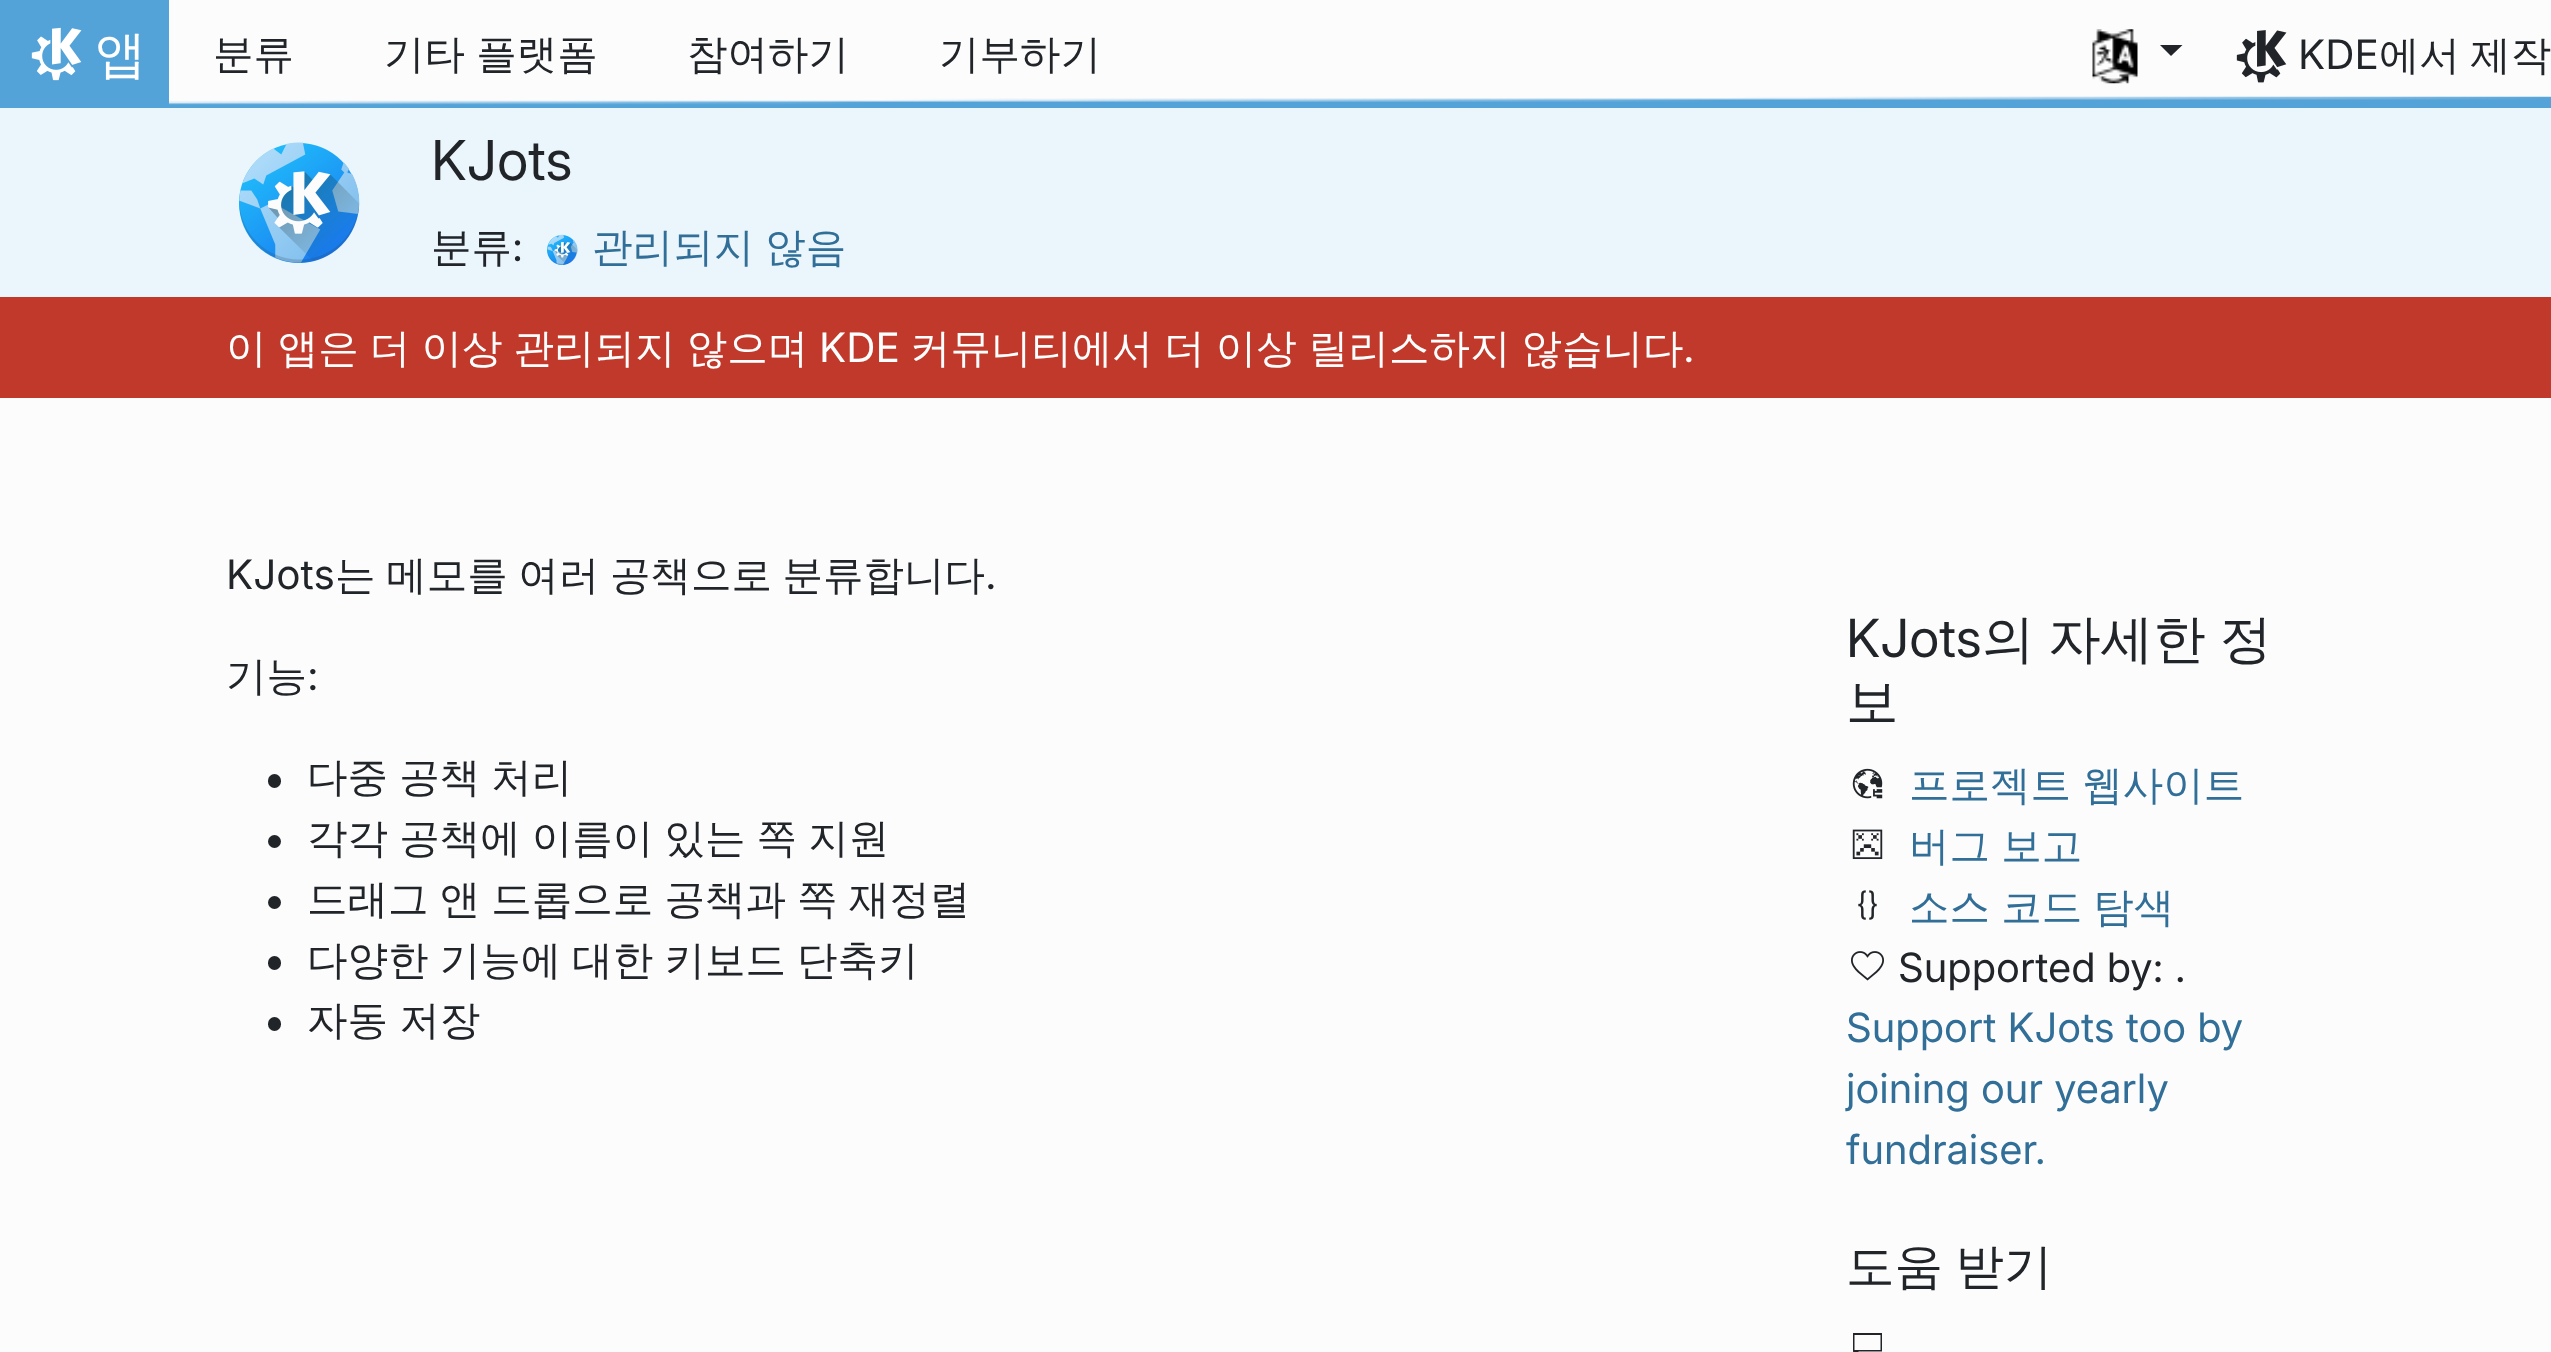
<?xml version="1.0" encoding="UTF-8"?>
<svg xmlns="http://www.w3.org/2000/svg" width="2551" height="1352">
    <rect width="100%" height="100%" fill="#FCFCFC"/>
    <rect x="0" y="0" width="169" height="108" fill="#54A3D8"/>
    <image x="31" y="27" width="51" height="54" href="img_01.png"/>
    <text x="95" y="72" font-family="WenQuanYi Zen Hei" font-size="51" font-weight="500" fill="#FFFFFF">앱</text>
    <text x="213" y="68" font-family="WenQuanYi Zen Hei" font-size="40.5" font-weight="500" fill="#212529">분류</text>
    <text x="384" y="68" word-spacing="-1" font-family="WenQuanYi Zen Hei" font-size="40.5" font-weight="500" fill="#212529">기타 플랫폼</text>
    <text x="687" y="68" font-family="WenQuanYi Zen Hei" font-size="40.5" font-weight="500" fill="#212529">참여하기</text>
    <text x="939" y="68" font-family="WenQuanYi Zen Hei" font-size="40.5" font-weight="500" fill="#212529">기부하기</text>
    <image x="2092" y="29" width="46" height="55" href="img_02.png"/>
    <path d="M 2160 45 H 2182.5 L 2171 56 Z" fill="#212529"/>
    <image x="2236" y="30" width="51" height="53" href="img_03.png"/>
    <text x="2298" y="69" font-family="'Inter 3'" font-size="40.5" fill="#212529">KDE</text>
    <text x="2379" y="69" word-spacing="-2" font-family="WenQuanYi Zen Hei" font-size="40.5" font-weight="500" fill="#212529">에서 제작</text>
    <image x="169" y="96" width="2382" height="12" href="img_04.png"/>
    <rect x="0" y="108" width="2551" height="189" fill="#EBF6FC"/>
    <image x="239" y="142" width="121" height="121" href="img_05.png"/>
    <text x="431" y="180" font-family="Inter" font-size="55" fill="#212529">KJots</text>
    <text x="431" y="261" font-family="WenQuanYi Zen Hei" font-size="40.5" font-weight="500" fill="#212529">분류</text>
    <text x="512" y="261" font-family="'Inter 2'" font-size="40.5" fill="#212529">:</text>
    <image x="547" y="234" width="31" height="31" href="img_06.png"/>
    <text x="592" y="261" word-spacing="-1" font-family="WenQuanYi Zen Hei" font-size="40.5" font-weight="500" fill="#316F98">관리되지 않음</text>
    <rect x="0" y="297" width="2551" height="101" fill="#C0392B"/>
    <text x="226" y="362" word-spacing="-1" font-family="WenQuanYi Zen Hei" font-size="40.5" font-weight="500" fill="#FFFFFF">이 앱은 더 이상 관리되지 않으며</text>
    <text x="819" y="362" font-family="'Inter 3'" font-size="40.5" fill="#FFFFFF">KDE</text>
    <text x="910" y="362" word-spacing="-1" font-family="WenQuanYi Zen Hei" font-size="40.5" font-weight="500" fill="#FFFFFF">커뮤니티에서 더 이상 릴리스하지 않습니다</text>
    <text x="1683" y="362" font-family="'Inter 3'" font-size="40.5" fill="#FFFFFF">.</text>
    <text x="226" y="589" font-family="'Inter 3'" font-size="40.5" fill="#212529">KJots</text>
    <text x="335" y="589" word-spacing="-1.5" font-family="WenQuanYi Zen Hei" font-size="40.5" font-weight="500" fill="#212529">는 메모를 여러 공책으로 분류합니다</text>
    <text x="985" y="589" font-family="'Inter 3'" font-size="40.5" fill="#212529">.</text>
    <text x="226" y="690" font-family="WenQuanYi Zen Hei" font-size="40.5" font-weight="500" fill="#212529">기능</text>
    <text x="307" y="690" font-family="'Inter 3'" font-size="40.5" fill="#212529">:</text>
    <rect x="268" y="774" width="13" height="14" rx="6.5" fill="#212529"/>
    <text x="307" y="791" word-spacing="-1" font-family="WenQuanYi Zen Hei" font-size="40.5" font-weight="500" fill="#212529">다중 공책 처리</text>
    <circle cx="274.5" cy="841.5" r="6.5" fill="#212529"/>
    <text x="307" y="852" word-spacing="-1" font-family="WenQuanYi Zen Hei" font-size="40.5" font-weight="500" fill="#212529">각각 공책에 이름이 있는 쪽 지원</text>
    <circle cx="274.5" cy="902.5" r="6.5" fill="#212529"/>
    <text x="307" y="913" word-spacing="-1" font-family="WenQuanYi Zen Hei" font-size="40.5" font-weight="500" fill="#212529">드래그 앤 드롭으로 공책과 쪽 재정렬</text>
    <rect x="268" y="956" width="13" height="14" rx="6.5" fill="#212529"/>
    <text x="307" y="974" word-spacing="-1" font-family="WenQuanYi Zen Hei" font-size="40.5" font-weight="500" fill="#212529">다양한 기능에 대한 키보드 단축키</text>
    <rect x="268" y="1017" width="13" height="14" rx="6.5" fill="#212529"/>
    <text x="307" y="1034" word-spacing="-1" font-family="WenQuanYi Zen Hei" font-size="40.5" font-weight="500" fill="#212529">자동 저장</text>
    <text x="1846" y="657" font-family="'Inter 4'" font-size="52.5" fill="#212529">KJots</text>
    <text x="1982" y="657" word-spacing="-2" font-family="WenQuanYi Zen Hei" font-size="52.5" font-weight="500" fill="#212529">의 자세한 정</text>
    <text x="1846" y="720" font-family="WenQuanYi Zen Hei" font-size="52.5" font-weight="500" fill="#212529">보</text>
    <image x="1852" y="768" width="31" height="31" href="img_07.png"/>
    <text x="1909" y="799" word-spacing="-1" font-family="WenQuanYi Zen Hei" font-size="40.5" font-weight="500" fill="#316F98">프로젝트 웹사이트</text>
    <image x="1852" y="829" width="31" height="31" href="img_08.png"/>
    <text x="1909" y="860" word-spacing="-1" font-family="WenQuanYi Zen Hei" font-size="40.5" font-weight="500" fill="#316F98">버그 보고</text>
    <image x="1858" y="890" width="19" height="30" href="img_09.png"/>
    <text x="1909" y="921" word-spacing="-1" font-family="WenQuanYi Zen Hei" font-size="40.5" font-weight="500" fill="#316F98">소스 코드 탐색</text>
    <image x="1851" y="951" width="33" height="30" href="img_10.png"/>
    <text x="1898" y="982" font-family="'Inter 2'" font-size="40.5" fill="#212529">Supported by: .</text>
    <text font-family="'Inter 2'" font-size="40.5" fill="#316F98">
        <tspan x="1846" y="1042">Support KJots too by</tspan>
        <tspan x="1846" y="1103">joining our yearly</tspan>
        <tspan x="1846" y="1164">fundraiser.</tspan>
    </text>
    <text x="1846" y="1283" word-spacing="-2" font-family="WenQuanYi Zen Hei" font-size="48.5" font-weight="500" fill="#212529">도움 받기</text>
    <path d="M 1853 1333 H 1882 V 1351.5 H 1858.5 V 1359 L 1853 1351.5 Z M 1854.5 1335 V 1350 H 1880.5 V 1335 Z" fill="#212529"/>
</svg>
